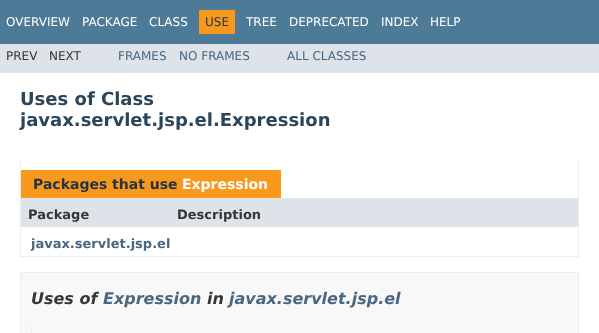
<?xml version="1.0" encoding="UTF-8"?>
<svg xmlns="http://www.w3.org/2000/svg" width="599" height="333">
    <rect width="100%" height="100%" fill="#FFFFFF"/>
    <rect x="0" y="0" width="599" height="44" fill="#4D7A97"/>
    <text x="6" y="26" font-family="DejaVu Sans" font-size="12" fill="#FFFFFF">OVERVIEW</text>
    <text x="82" y="26" font-family="DejaVu Sans" font-size="12" fill="#FFFFFF">PACKAGE</text>
    <text x="149" y="26" font-family="DejaVu Sans" font-size="12" fill="#FFFFFF">CLASS</text>
    <rect x="199" y="10" width="36" height="24" fill="#F8981D"/>
    <text x="205" y="26" font-family="DejaVu Sans" font-size="12" fill="#253441">USE</text>
    <text x="246" y="26" font-family="DejaVu Sans" font-size="12" fill="#FFFFFF">TREE</text>
    <text x="289" y="26" font-family="DejaVu Sans" font-size="12" fill="#FFFFFF">DEPRECATED</text>
    <text x="381" y="26" font-family="DejaVu Sans" font-size="12" fill="#FFFFFF">INDEX</text>
    <text x="430" y="26" font-family="DejaVu Sans" font-size="12" fill="#FFFFFF">HELP</text>
    <rect x="0" y="44" width="599" height="29" fill="#DEE3E9"/>
    <text x="6" y="60" font-family="DejaVu Sans" font-size="12" fill="#353833">PREV</text>
    <text x="49" y="60" font-family="DejaVu Sans" font-size="12" fill="#353833">NEXT</text>
    <text x="118" y="60" font-family="DejaVu Sans" font-size="12" fill="#4A6782">FRAMES</text>
    <text x="179" y="60" font-family="DejaVu Sans" font-size="12" fill="#4A6782">NO FRAMES</text>
    <text x="287" y="60" font-family="DejaVu Sans" font-size="12" fill="#4A6782">ALL CLASSES</text>
    <text font-family="DejaVu Sans" font-size="18" font-weight="700" fill="#2C4557">
        <tspan x="20" y="105">Uses of Class</tspan>
        <tspan x="20" y="126">javax.servlet.jsp.el.Expression</tspan>
    </text>
    <rect x="578" y="160" width="1" height="97" fill="#EEEEEE"/>
    <rect x="20" y="256" width="559" height="1" fill="#EEEEEE"/>
    <rect x="20" y="160" width="1" height="97" fill="#EEEEEE"/>
    <rect x="21" y="170" width="260" height="28" fill="#F8981D"/>
    <text x="33" y="189" font-family="DejaVu Sans" font-size="14" font-weight="700" fill="#253441">Packages that use</text>
    <text x="182" y="189" font-family="DejaVu Sans" font-size="14" font-weight="700" fill="#FFFFFF">Expression</text>
    <rect x="21" y="198" width="557" height="29" fill="#DEE3E9"/>
    <text x="28" y="219" font-family="DejaVu Sans" font-size="13" font-weight="700" fill="#353833">Package</text>
    <text x="177" y="219" font-family="DejaVu Sans" font-size="13" font-weight="700" fill="#353833">Description</text>
    <text x="31" y="248" font-family="DejaVu Sans" font-size="13" font-weight="700" fill="#4A6782">javax.servlet.jsp.el</text>
    <rect x="20.5" y="272.5" width="558" height="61" fill="#F8F8F8" stroke="#EDEDED"/>
    <text x="31" y="304" font-family="DejaVu Sans" font-size="16" font-weight="700" font-style="italic" fill="#353833">Uses of</text>
    <text x="103" y="304" font-family="DejaVu Sans" font-size="16" font-weight="700" font-style="italic" fill="#4A6782">Expression</text>
    <text x="207" y="304" font-family="DejaVu Sans" font-size="16" font-weight="700" font-style="italic" fill="#353833">in</text>
    <text x="229" y="304" font-family="DejaVu Sans" font-size="16" font-weight="700" font-style="italic" fill="#4A6782">javax.servlet.jsp.el</text>
    <rect x="31" y="325" width="1" height="8" fill="#EEEEEE"/>
</svg>
